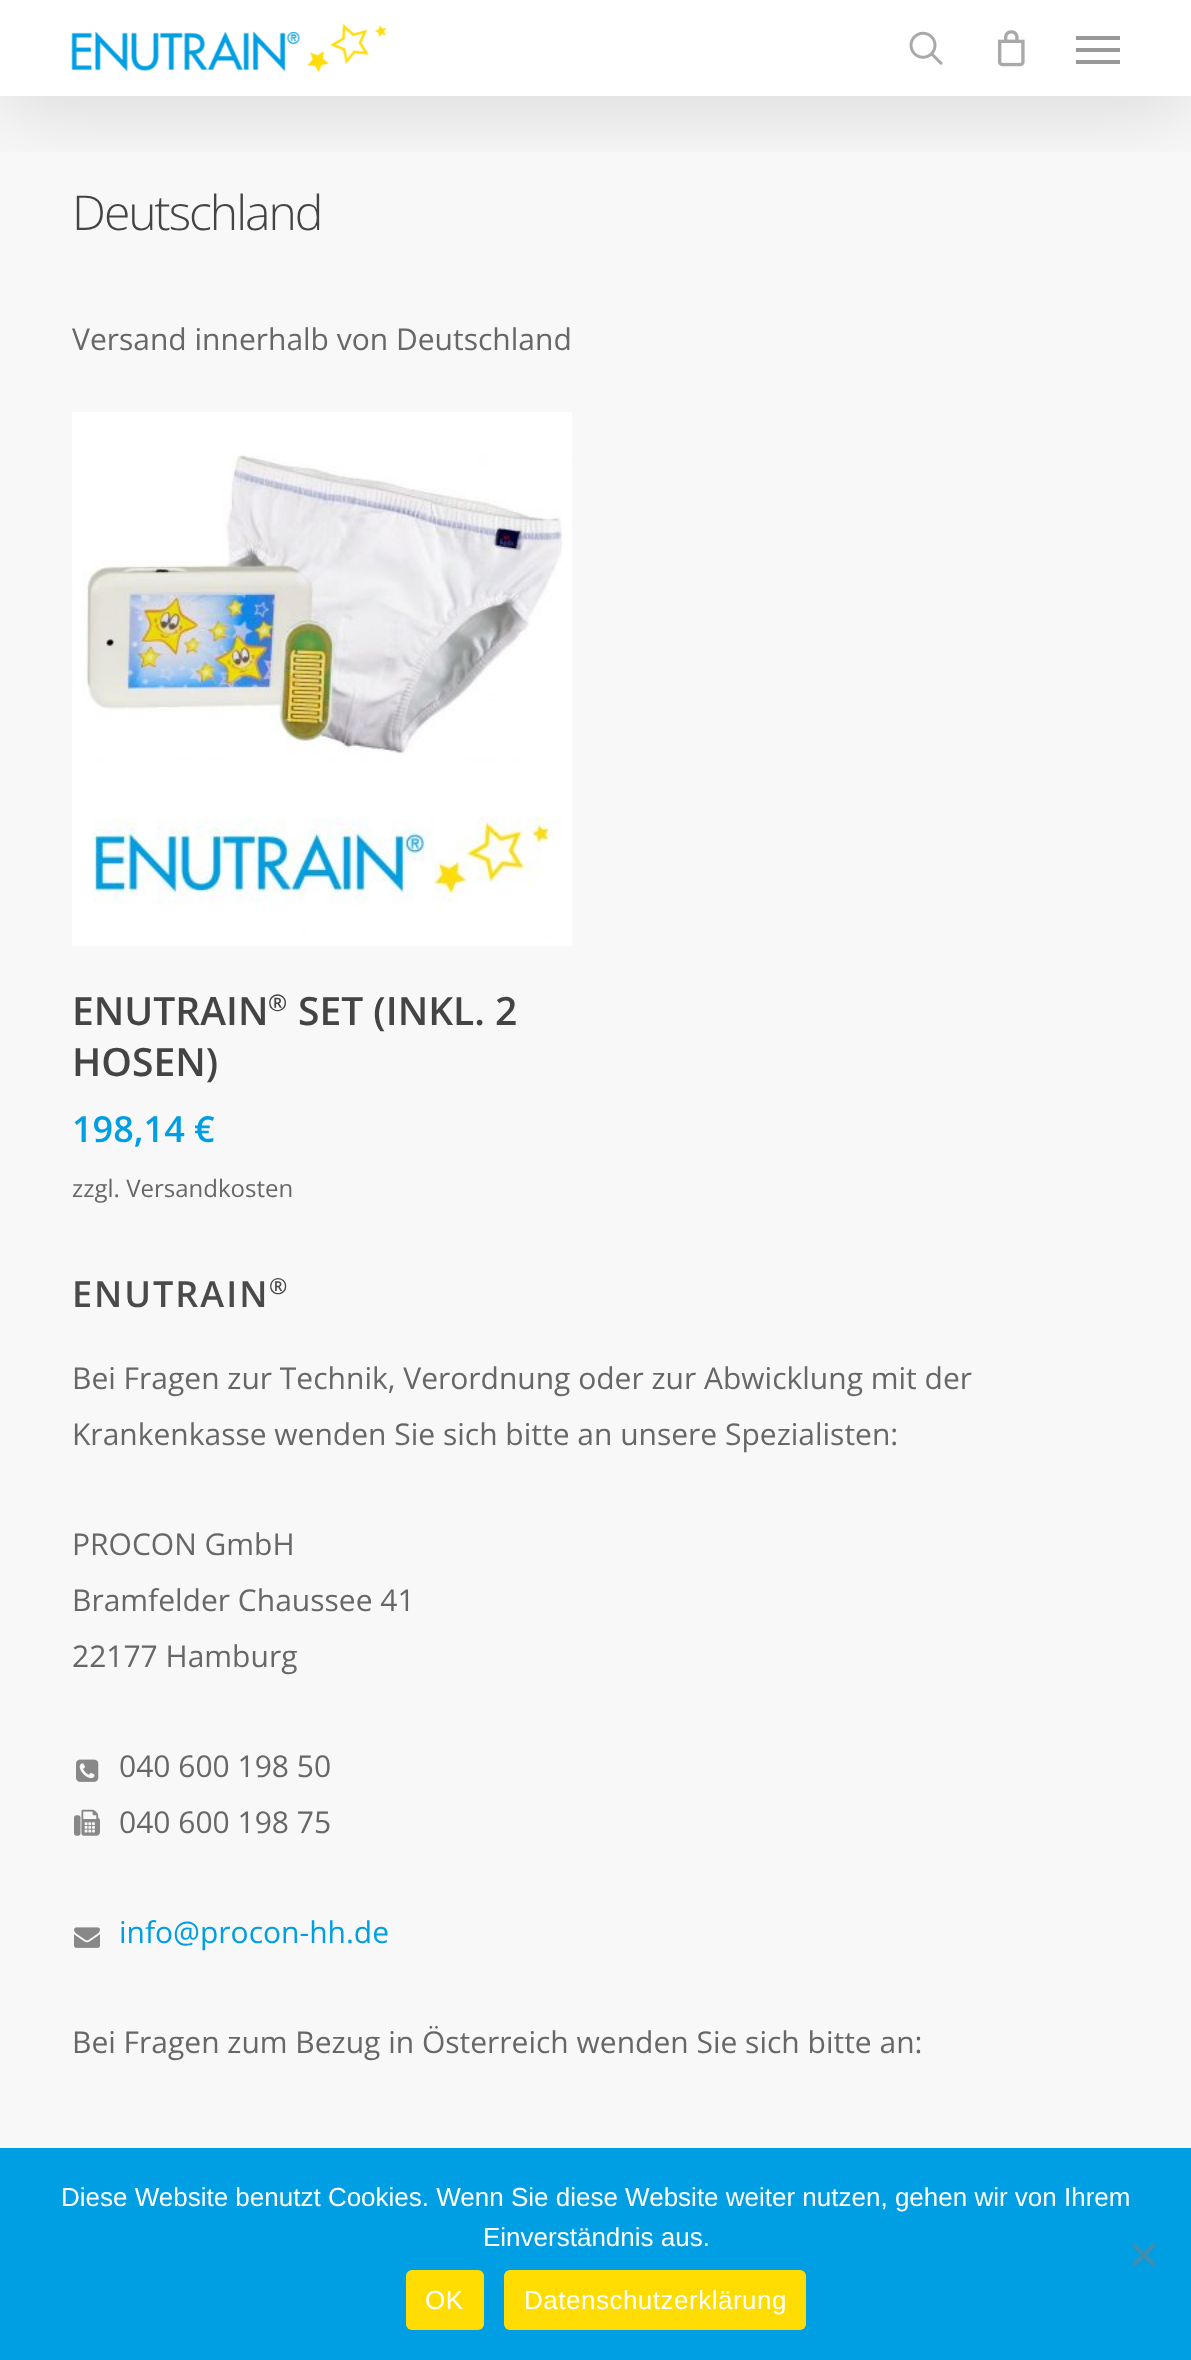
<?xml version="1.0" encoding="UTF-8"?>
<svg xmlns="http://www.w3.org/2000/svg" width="1191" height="2360">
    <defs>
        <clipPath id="clip1"><rect x="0" y="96" width="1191" height="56"/></clipPath>
        <filter id="blur1" x="-50%" y="-200%" width="200%" height="500%"><feGaussianBlur stdDeviation="45"/></filter>
    </defs>
    <rect width="100%" height="100%" fill="#FFFFFF"/>
    <rect x="0" y="96" width="1191" height="2052" fill="#F8F8F8"/>
    <g clip-path="url(#clip1)">
        <rect x="0" y="6" width="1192" height="96" fill="#000000" fill-opacity="0.15" filter="url(#blur1)"/>
    </g>
    <image x="71" y="24" width="316" height="48" href="img_01.png"/>
    <image x="909" y="31" width="34" height="34" href="img_02.png"/>
    <image x="998" y="30" width="27" height="37" href="img_03.png"/>
    <rect x="1076" y="36" width="44" height="4" fill="#999999"/>
    <rect x="1076" y="60" width="44" height="4" fill="#999999"/>
    <rect x="1076" y="48" width="44" height="4" fill="#999999"/>
    <text x="72" y="230" font-family="Open Sans" font-size="48" font-weight="300" letter-spacing="-2" fill="#444444">Deutschland</text>
    <text x="72" y="350" font-family="Open Sans" font-size="30" fill="#676767">Versand innerhalb von Deutschland</text>
    <image x="72" y="412" width="500" height="534" href="img_04.png"/>
    <text x="72" y="1025" font-family="Open Sans" font-size="39" font-weight="600" fill="#444444">ENUTRAIN</text>
    <text x="268" y="1011" font-family="Open Sans" font-size="23" font-weight="600" fill="#444444">®</text>
    <text x="298" y="1025" font-family="Open Sans" font-size="39" font-weight="600" fill="#444444">SET (INKL. 2</text>
    <text x="72" y="1076" font-family="Open Sans" font-size="39" font-weight="600" fill="#444444">HOSEN)</text>
    <text x="72" y="1142" font-family="Open Sans" font-size="36" font-weight="600" fill="#009EE3">198,14 €</text>
    <text x="72" y="1197" font-family="Open Sans" font-size="24" fill="#676767">zzgl. Versandkosten</text>
    <text x="72" y="1307" font-family="Open Sans" font-size="36" font-weight="600" letter-spacing="2" fill="#4A4A4A">ENUTRAIN</text>
    <text x="269" y="1294" font-family="Open Sans" font-size="22" font-weight="600" letter-spacing="2" fill="#4A4A4A">®</text>
    <text font-family="Open Sans" font-size="30" fill="#676767">
        <tspan x="72" y="1389">Bei Fragen zur Technik, Verordnung oder zur Abwicklung mit der</tspan>
        <tspan x="72" y="1445">Krankenkasse wenden Sie sich bitte an unsere Spezialisten:</tspan>
    </text>
    <text font-family="Open Sans" font-size="30" fill="#676767">
        <tspan x="72" y="1555">PROCON GmbH</tspan>
        <tspan x="72" y="1611">Bramfelder Chaussee 41</tspan>
        <tspan x="72" y="1667">22177 Hamburg</tspan>
    </text>
    <image x="76" y="1759" width="23" height="23" href="img_05.png"/>
    <text x="119" y="1777" font-family="Open Sans" font-size="30" fill="#676767">040 600 198 50</text>
    <image x="74" y="1809" width="26" height="27" href="img_06.png"/>
    <text x="119" y="1833" font-family="Open Sans" font-size="30" fill="#676767">040 600 198 75</text>
    <image x="74" y="1927" width="26" height="21" href="img_07.png"/>
    <text x="119" y="1943" font-family="Open Sans" font-size="30" fill="#009EE3">info@procon-hh.de</text>
    <text x="72" y="2053" font-family="Open Sans" font-size="30" fill="#676767">Bei Fragen zum Bezug in Österreich wenden Sie sich bitte an:</text>
    <rect x="0" y="2148" width="1191" height="212" fill="#009EE3"/>
    <text x="61" y="2206" font-family="Liberation Sans" font-size="26" fill="#FFFFFF">Diese Website benutzt Cookies. Wenn Sie diese Website weiter nutzen, gehen wir von Ihrem</text>
    <text x="483" y="2246" font-family="Liberation Sans" font-size="26" fill="#FFFFFF">Einverständnis aus.</text>
    <path d="M 1153 2243 L 1156 2246 L 1135 2267 L 1132 2264 Z" fill="#408FB2"/>
    <path d="M 1132 2246 L 1135 2243 L 1156 2264 L 1153 2267 Z" fill="#408FB2"/>
    <rect x="406" y="2270" width="78" height="60" rx="6" fill="#FFDD03"/>
    <text x="425" y="2309" font-family="Liberation Sans" font-size="26" letter-spacing="0.5" fill="#FFFFFF">OK</text>
    <rect x="504" y="2270" width="302" height="60" rx="6" fill="#FFDD03"/>
    <text x="524" y="2309" font-family="Liberation Sans" font-size="26" letter-spacing="0.5" fill="#FFFFFF">Datenschutzerklärung</text>
</svg>
